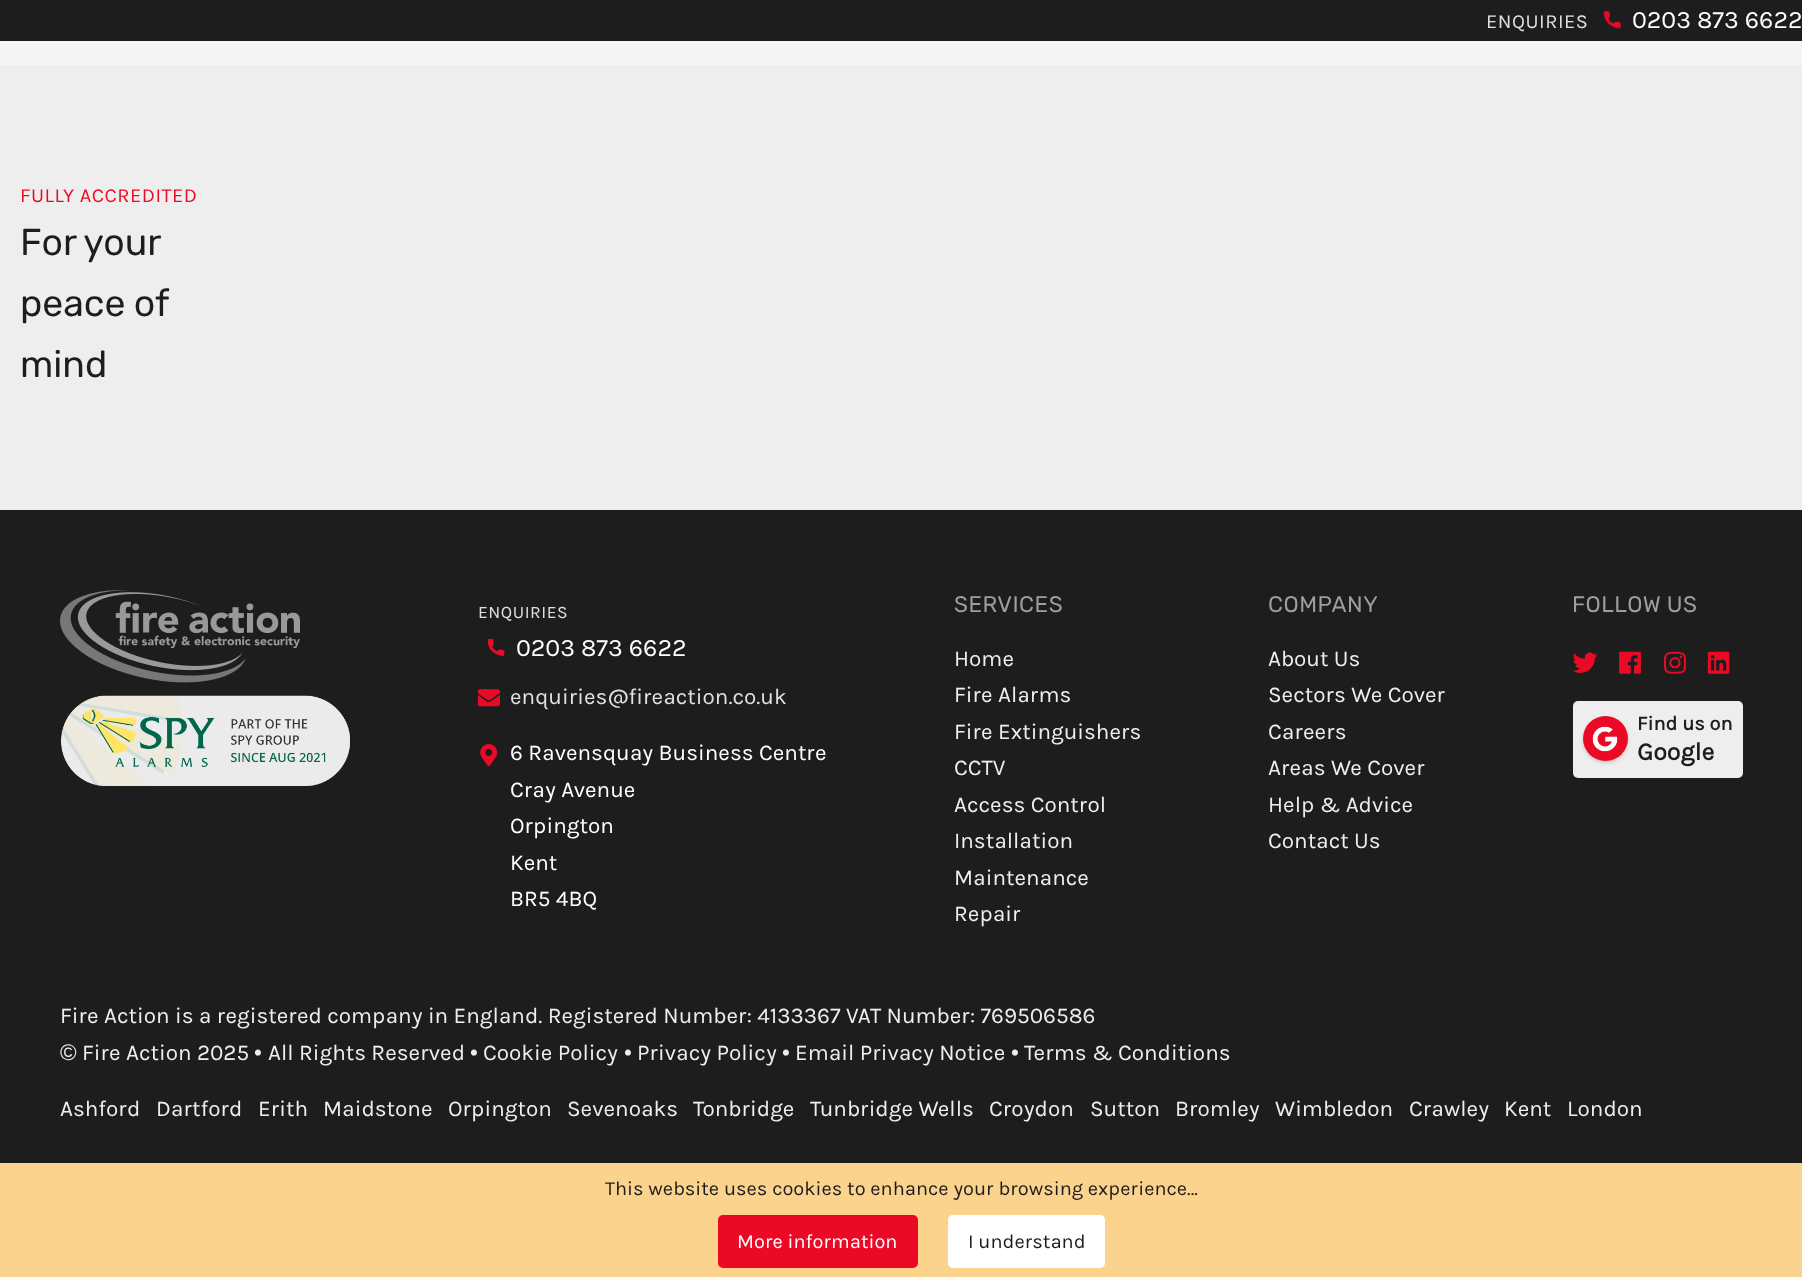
<?xml version="1.0" encoding="UTF-8"?>
<svg xmlns="http://www.w3.org/2000/svg" width="1802" height="1277">
    <defs>
        <filter id="blur1" x="-50%" y="-200%" width="200%" height="500%"><feGaussianBlur stdDeviation="1"/></filter>
        <filter id="blur2" x="-50%" y="-200%" width="200%" height="500%"><feGaussianBlur stdDeviation="2"/></filter>
    </defs>
    <rect width="100%" height="100%" fill="#F5F5F5"/>
    <rect x="0" y="0" width="1802" height="41" fill="#1D1D1D"/>
    <text x="1486" y="28" font-family="Karla" font-size="20" letter-spacing="0.5" fill="#E0E0E0">ENQUIRIES</text>
    <image x="1603" y="11" width="18" height="18" href="img_01.png"/>
    <text x="1632" y="28" font-family="Karla" font-size="25" fill="#FFFFFF">0203 873 6622</text>
    <rect x="0" y="65" width="1802" height="445" fill="#EEEEEE"/>
    <text x="20" y="202" font-family="Karla" font-size="20" letter-spacing="0.5" fill="#EA0A25">FULLY ACCREDITED</text>
    <text font-family="Rubik" font-size="37.5" fill="#1D1D1D">
        <tspan x="20" y="255" word-spacing="-1">For your</tspan>
        <tspan x="20" y="316" word-spacing="-1">peace of</tspan>
        <tspan x="20" y="377">mind</tspan>
    </text>
    <rect x="0" y="510" width="1802" height="653" fill="#1D1D1D"/>
    <image x="60" y="590" width="240" height="93" href="img_02.png"/>
    <image x="61" y="695" width="289" height="91" href="img_03.png"/>
    <text x="478" y="618" font-family="Karla" font-size="17.5" letter-spacing="0.5" fill="#E0E0E0">ENQUIRIES</text>
    <image x="487" y="639" width="18" height="17" href="img_04.png"/>
    <text x="516" y="656" font-family="Karla" font-size="25" fill="#FFFFFF">0203 873 6622</text>
    <image x="477" y="689" width="23" height="18" href="img_05.png"/>
    <text x="510" y="704" font-family="Karla" font-size="22.5" fill="#E0E0E0">enquiries@fireaction.co.uk</text>
    <image x="480" y="744" width="18" height="23" href="img_06.png"/>
    <text font-family="Karla" font-size="22.5" fill="#FFFFFF">
        <tspan x="510" y="760">6 Ravensquay Business Centre</tspan>
        <tspan x="510" y="797">Cray Avenue</tspan>
        <tspan x="510" y="833">Orpington</tspan>
        <tspan x="510" y="870">Kent</tspan>
        <tspan x="510" y="906">BR5 4BQ</tspan>
    </text>
    <text x="954" y="612" font-family="Rubik" font-size="22.5" letter-spacing="0.5" fill="#9E9E9E">SERVICES</text>
    <text font-family="Karla" font-size="22.5" fill="#EEEEEE">
        <tspan x="954" y="666">Home</tspan>
        <tspan x="954" y="702">Fire Alarms</tspan>
        <tspan x="954" y="739">Fire Extinguishers</tspan>
        <tspan x="954" y="775">CCTV</tspan>
        <tspan x="954" y="812">Access Control</tspan>
        <tspan x="954" y="848">Installation</tspan>
        <tspan x="954" y="885">Maintenance</tspan>
        <tspan x="954" y="921">Repair</tspan>
    </text>
    <text x="1268" y="612" font-family="Rubik" font-size="22.5" letter-spacing="0.5" fill="#9E9E9E">COMPANY</text>
    <text font-family="Karla" font-size="22.5" fill="#EEEEEE">
        <tspan x="1268" y="666">About Us</tspan>
        <tspan x="1268" y="702">Sectors We Cover</tspan>
        <tspan x="1268" y="739">Careers</tspan>
        <tspan x="1268" y="775">Areas We Cover</tspan>
        <tspan x="1268" y="812">Help &amp; Advice</tspan>
        <tspan x="1268" y="848">Contact Us</tspan>
    </text>
    <text x="1572" y="612" font-family="Rubik" font-size="22.5" letter-spacing="0.5" fill="#9E9E9E">FOLLOW US</text>
    <image x="1573" y="652" width="25" height="21" href="img_07.png"/>
    <image x="1619" y="651" width="22" height="23" href="img_08.png"/>
    <image x="1664" y="651" width="22" height="23" href="img_09.png"/>
    <image x="1707" y="651" width="23" height="23" href="img_10.png"/>
    <rect x="1573" y="701" width="170" height="77" rx="5" fill="#EEEEEE"/>
    <rect x="1583" y="718" width="45" height="45" rx="22.5" fill="#000000" fill-opacity="0.06" filter="url(#blur1)"/>
    <rect x="1583" y="718" width="45" height="45" rx="22.5" fill="#000000" fill-opacity="0.1" filter="url(#blur2)"/>
    <circle cx="1605.5" cy="738.5" r="22.5" fill="#EA0A25"/>
    <image x="1592" y="726" width="26" height="26" href="img_11.png"/>
    <text x="1637" y="730" font-family="Karla" font-size="20" font-weight="700" fill="#1D1D1D">Find us on</text>
    <text x="1637" y="760" font-family="Karla" font-size="25" font-weight="700" fill="#1D1D1D">Google</text>
    <text x="60" y="1023" font-family="Karla" font-size="22.5" fill="#EEEEEE">Fire Action is a registered company in England. Registered Number: 4133367 VAT Number: 769506586</text>
    <text x="60" y="1060" font-family="Liberation Sans" font-size="22.5" fill="#EEEEEE">©</text>
    <text x="82" y="1060" font-family="Karla" font-size="22.5" fill="#EEEEEE">Fire Action 2025</text>
    <text x="254" y="1060" font-family="Liberation Sans" font-size="22.5" fill="#EEEEEE">•</text>
    <text x="268" y="1060" font-family="Karla" font-size="22.5" fill="#EEEEEE">All Rights Reserved</text>
    <text x="470" y="1060" font-family="Liberation Sans" font-size="22.5" fill="#EEEEEE">•</text>
    <text x="483" y="1060" font-family="Karla" font-size="22.5" fill="#EEEEEE">Cookie Policy</text>
    <text x="624" y="1060" font-family="Liberation Sans" font-size="22.5" fill="#EEEEEE">•</text>
    <text x="637" y="1060" font-family="Karla" font-size="22.5" fill="#EEEEEE">Privacy Policy</text>
    <text x="782" y="1060" font-family="Liberation Sans" font-size="22.5" fill="#EEEEEE">•</text>
    <text x="795" y="1060" font-family="Karla" font-size="22.5" fill="#EEEEEE">Email Privacy Notice</text>
    <text x="1011" y="1060" font-family="Liberation Sans" font-size="22.5" fill="#EEEEEE">•</text>
    <text x="1024" y="1060" font-family="Karla" font-size="22.5" fill="#EEEEEE">Terms &amp; Conditions</text>
    <text x="60" y="1116" font-family="Karla" font-size="22.5" fill="#EEEEEE">Ashford</text>
    <text x="156" y="1116" font-family="Karla" font-size="22.5" fill="#EEEEEE">Dartford</text>
    <text x="258" y="1116" font-family="Karla" font-size="22.5" fill="#EEEEEE">Erith</text>
    <text x="323" y="1116" font-family="Karla" font-size="22.5" fill="#EEEEEE">Maidstone</text>
    <text x="448" y="1116" font-family="Karla" font-size="22.5" fill="#EEEEEE">Orpington</text>
    <text x="567" y="1116" font-family="Karla" font-size="22.5" fill="#EEEEEE">Sevenoaks</text>
    <text x="693" y="1116" font-family="Karla" font-size="22.5" fill="#EEEEEE">Tonbridge</text>
    <text x="810" y="1116" font-family="Karla" font-size="22.5" fill="#EEEEEE">Tunbridge Wells</text>
    <text x="989" y="1116" font-family="Karla" font-size="22.5" fill="#EEEEEE">Croydon</text>
    <text x="1090" y="1116" font-family="Karla" font-size="22.5" fill="#EEEEEE">Sutton</text>
    <text x="1175" y="1116" font-family="Karla" font-size="22.5" fill="#EEEEEE">Bromley</text>
    <text x="1275" y="1116" font-family="Karla" font-size="22.5" fill="#EEEEEE">Wimbledon</text>
    <text x="1409" y="1116" font-family="Karla" font-size="22.5" fill="#EEEEEE">Crawley</text>
    <text x="1504" y="1116" font-family="Karla" font-size="22.5" fill="#EEEEEE">Kent</text>
    <text x="1567" y="1116" font-family="Karla" font-size="22.5" fill="#EEEEEE">London</text>
    <rect x="0" y="1163" width="1802" height="114" fill="#FBD38D"/>
    <text x="605" y="1195" font-family="Karla" font-size="20" fill="#1D1D1D">This website uses cookies to enhance your browsing experience...</text>
    <rect x="718" y="1215" width="200" height="53" rx="5" fill="#EA0A25"/>
    <text x="737" y="1248" font-family="Karla" font-size="20" fill="#FFFFFF">More information</text>
    <rect x="948" y="1215" width="157" height="53" rx="5" fill="#FFFFFF"/>
    <text x="968" y="1248" font-family="Karla" font-size="20" fill="#1D1D1D">I understand</text>
</svg>
